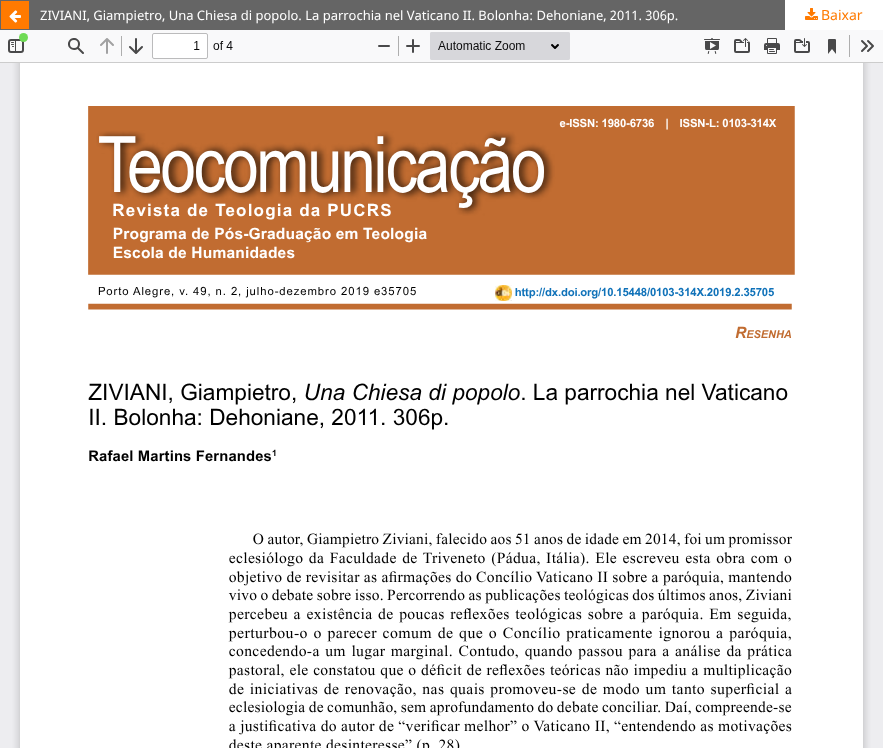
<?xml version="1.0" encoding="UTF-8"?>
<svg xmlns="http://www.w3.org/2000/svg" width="883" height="748">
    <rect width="100%" height="100%" fill="#FFFFFF"/>
    <rect x="30" y="0" width="755" height="30" fill="#656565"/>
    <rect x="0.5" y="0.5" width="29" height="29" fill="#FF7A00" stroke="#656565"/>
    <image x="9" y="10" width="12" height="13" href="img_01.png"/>
    <text x="40" y="20" font-family="Noto Sans" font-size="13" fill="#FFFFFF">ZIVIANI, Giampietro, Una Chiesa di popolo. La parrochia nel Vaticano II. Bolonha: Dehoniane, 2011. 306p.</text>
    <image x="805" y="8" width="13" height="12" href="img_02.png"/>
    <text x="821" y="20" font-family="Noto Sans" font-size="14" fill="#FF7A00">Baixar</text>
    <image x="0" y="30" width="883" height="718" href="img_03.png"/>
</svg>
